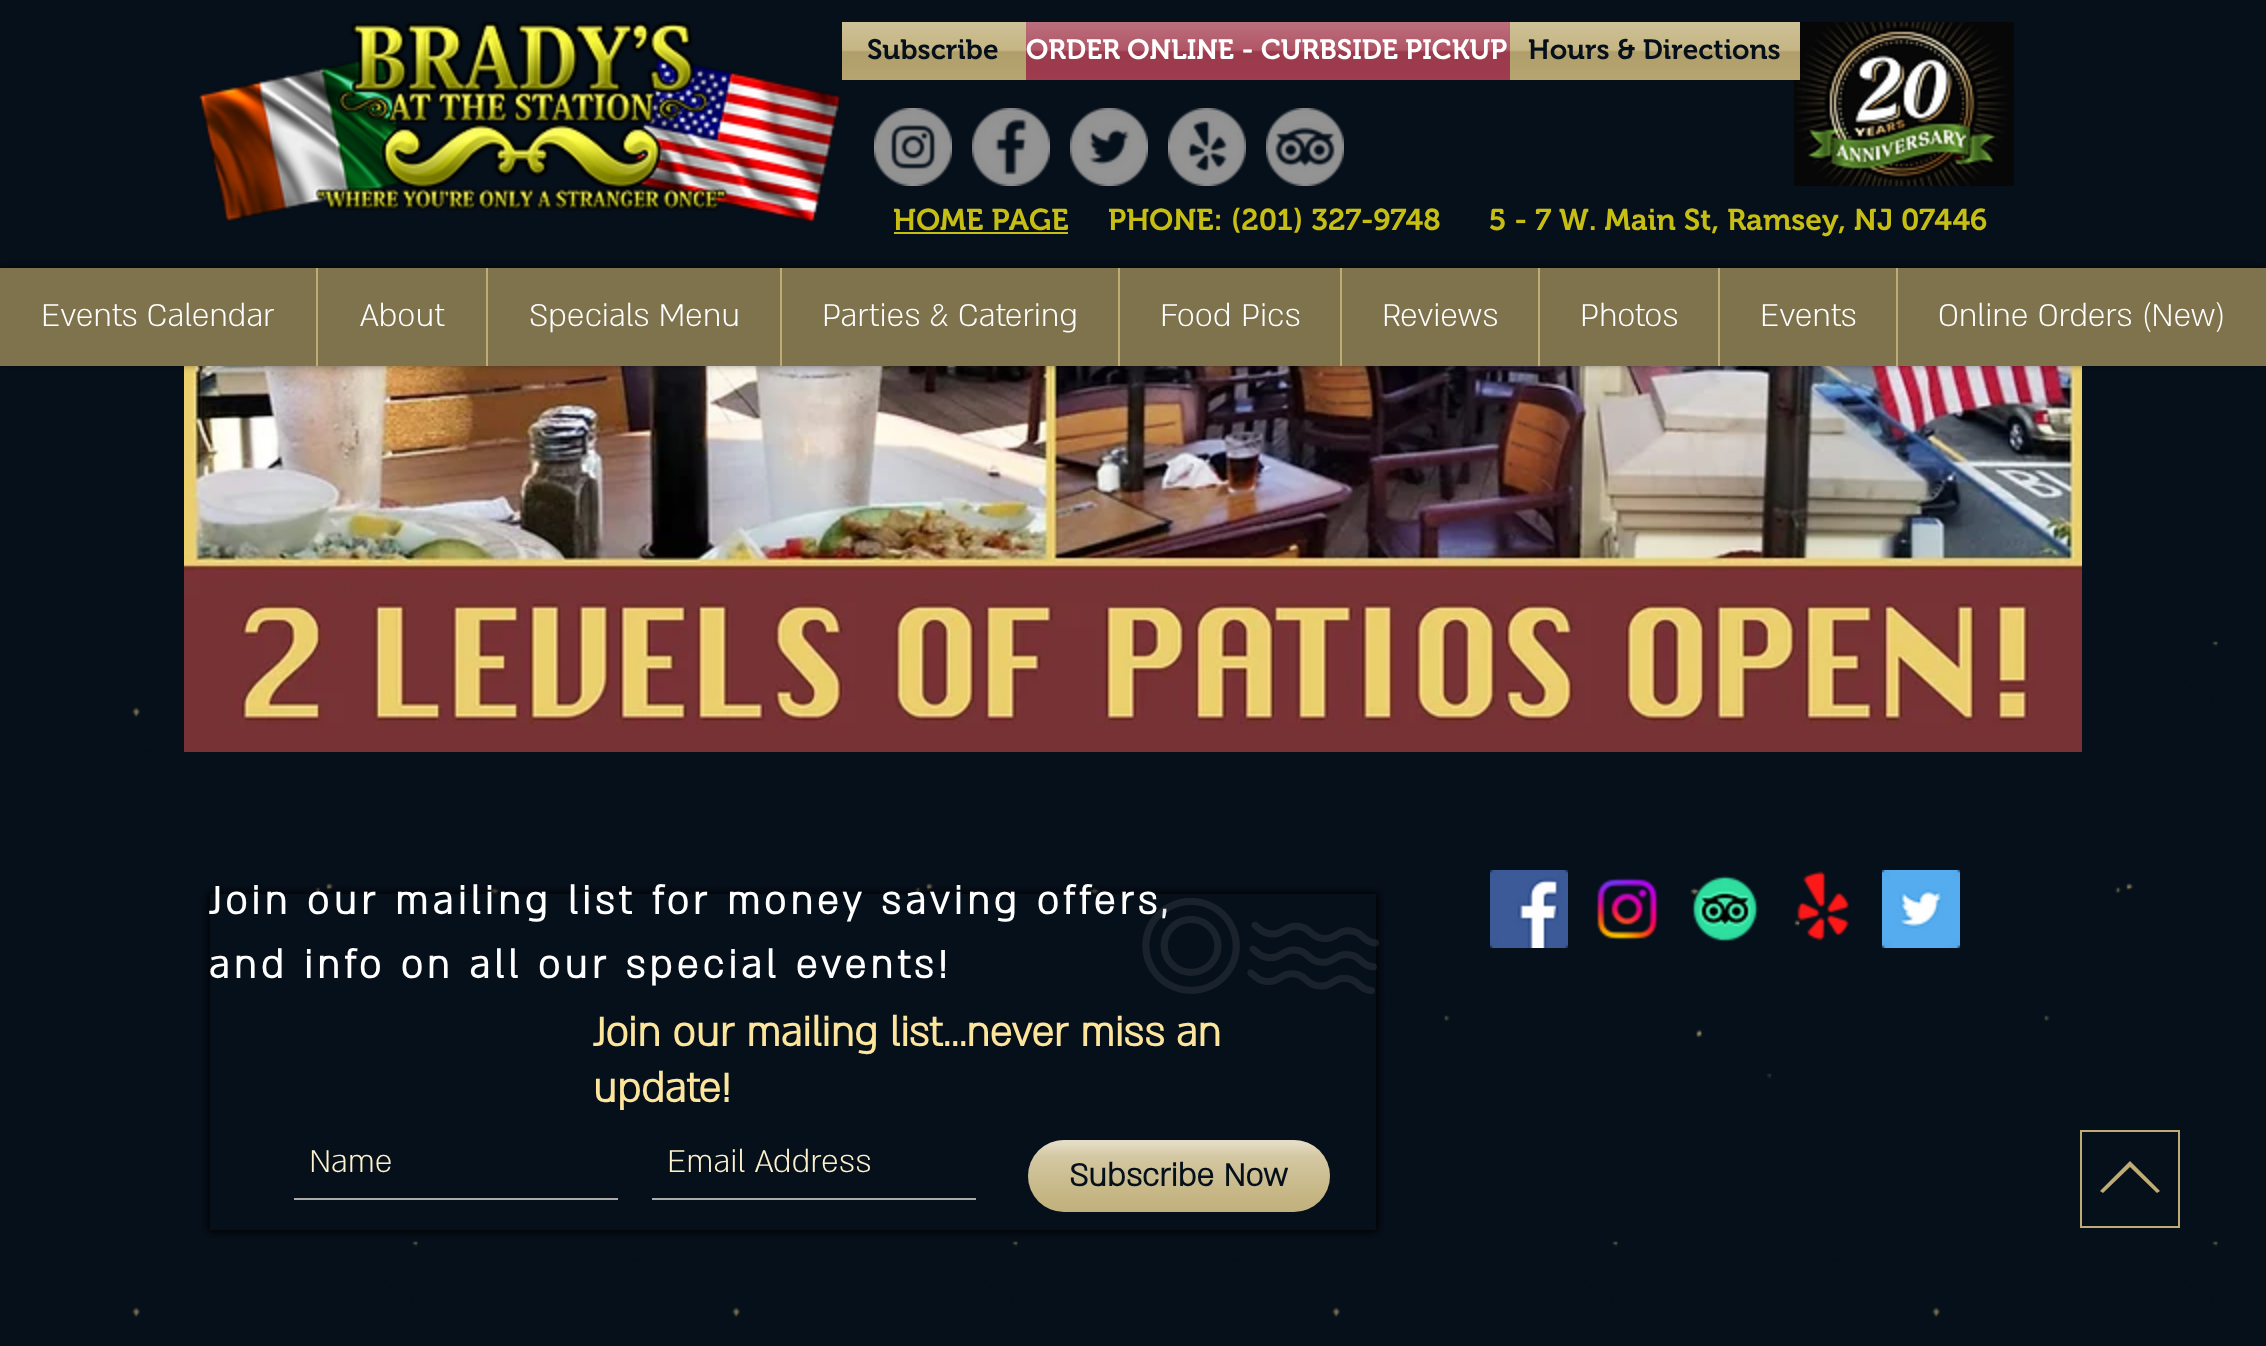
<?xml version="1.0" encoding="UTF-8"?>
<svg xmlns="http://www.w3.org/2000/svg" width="2266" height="1346">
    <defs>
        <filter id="blur1" x="-50%" y="-200%" width="200%" height="500%"><feGaussianBlur stdDeviation="4"/></filter>
        <filter id="blur2" x="-50%" y="-200%" width="200%" height="500%"><feGaussianBlur stdDeviation="5"/></filter>
    </defs>
    <rect width="100%" height="100%" fill="#06101B"/>
    <image x="199" y="22" width="642" height="200" href="img_01.png"/>
    <rect x="842" y="22" width="184" height="58" fill="#BEAC74"/>
    <image x="842" y="22" width="184" height="58" href="img_02.png"/>
    <text x="867" y="59" font-family="'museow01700'" font-size="28" font-weight="600" fill="#06101B">Subscribe</text>
    <rect x="1026" y="22" width="484" height="58" fill="#A63F52"/>
    <image x="1026" y="22" width="484" height="58" href="img_03.png"/>
    <text x="1026" y="59" font-family="'museow01700'" font-size="28" font-weight="600" fill="#FFFFFF">ORDER ONLINE - CURBSIDE PICKUP</text>
    <image x="1794" y="22" width="220" height="164" href="img_05.png"/>
    <rect x="1510" y="22" width="290" height="58" fill="#BEAC74"/>
    <image x="1510" y="22" width="290" height="58" href="img_04.png"/>
    <text x="1528" y="59" font-family="'museow01700'" font-size="28" font-weight="600" fill="#06101B">Hours &amp; Directions</text>
    <image x="874" y="108" width="78" height="78" href="img_06.png"/>
    <image x="972" y="108" width="78" height="78" href="img_07.png"/>
    <image x="1070" y="108" width="78" height="78" href="img_08.png"/>
    <image x="1168" y="108" width="78" height="78" href="img_09.png"/>
    <image x="1266" y="108" width="78" height="78" href="img_10.png"/>
    <text x="893" y="230" font-family="'museow01700'" font-size="30" font-weight="600" fill="#C7BE14">HOME PAGE</text>
    <rect x="894" y="232" width="174" height="2" fill="#C7BE14"/>
    <text x="1108" y="230" font-family="'museow01700'" font-size="30" font-weight="600" fill="#C7BE14" xml:space="preserve">PHONE: (201) 327-9748      5 - 7 W. Main St, Ramsey, NJ 07446</text>
    <image x="132" y="641" width="2086" height="676" href="img_19.png"/>
    <image x="184" y="366" width="1898" height="386" href="img_11.png"/>
    <rect x="-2" y="266" width="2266" height="98" fill="#000000" fill-opacity="0.6" filter="url(#blur1)"/>
    <rect x="0" y="268" width="2266" height="98" fill="#7F734E"/>
    <text x="41" y="326" font-family="'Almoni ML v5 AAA'" font-size="36" font-weight="300" fill="#FFFFFF">Events Calendar</text>
    <rect x="316" y="268" width="2" height="98" fill="#BEAC74"/>
    <text x="360" y="326" font-family="'Almoni ML v5 AAA'" font-size="36" font-weight="300" fill="#FFFFFF">About</text>
    <rect x="486" y="268" width="2" height="98" fill="#BEAC74"/>
    <text x="529" y="326" font-family="'Almoni ML v5 AAA'" font-size="36" font-weight="300" fill="#FFFFFF">Specials Menu</text>
    <rect x="780" y="268" width="2" height="98" fill="#BEAC74"/>
    <text x="822" y="326" font-family="'Almoni ML v5 AAA'" font-size="36" font-weight="300" fill="#FFFFFF">Parties &amp; Catering</text>
    <rect x="1118" y="268" width="2" height="98" fill="#BEAC74"/>
    <text x="1160" y="326" font-family="'Almoni ML v5 AAA'" font-size="36" font-weight="300" fill="#FFFFFF">Food Pics</text>
    <rect x="1340" y="268" width="2" height="98" fill="#BEAC74"/>
    <text x="1382" y="326" font-family="'Almoni ML v5 AAA'" font-size="36" font-weight="300" fill="#FFFFFF">Reviews</text>
    <rect x="1538" y="268" width="2" height="98" fill="#BEAC74"/>
    <text x="1580" y="326" font-family="'Almoni ML v5 AAA'" font-size="36" font-weight="300" fill="#FFFFFF">Photos</text>
    <rect x="1718" y="268" width="2" height="98" fill="#BEAC74"/>
    <text x="1760" y="326" font-family="'Almoni ML v5 AAA'" font-size="36" font-weight="300" fill="#FFFFFF">Events</text>
    <rect x="1896" y="268" width="2" height="98" fill="#BEAC74"/>
    <text x="1938" y="326" font-family="'Almoni ML v5 AAA'" font-size="36" font-weight="300" fill="#FFFFFF">Online Orders (New)</text>
    <rect x="208" y="892" width="1170" height="340" fill="#000000" filter="url(#blur2)"/>
    <rect x="210" y="894" width="1166" height="336" fill="#06101B"/>
    <text font-family="'Almoni ML v5 AAA'" font-size="44" font-weight="700" letter-spacing="4.4" fill="#FFFFFF">
        <tspan x="209" y="914">Join our mailing list for money saving offers,</tspan>
        <tspan x="209" y="978">and info on all our special events!</tspan>
    </text>
    <text font-family="'Almoni ML v5 AAA'" font-size="46" font-weight="700" fill="#FDE69B">
        <tspan x="593" y="1046">Join our mailing list...never miss an</tspan>
        <tspan x="593" y="1102">update!</tspan>
    </text>
    <rect x="294" y="1198" width="324" height="2" fill="#ABABAB"/>
    <text x="309" y="1172" font-family="'Almoni ML v5 AAA'" font-size="36" font-weight="300" fill="#FEF2CD">Name</text>
    <rect x="652" y="1198" width="324" height="2" fill="#ABABAB"/>
    <text x="667" y="1172" font-family="'Almoni ML v5 AAA'" font-size="36" font-weight="300" fill="#FEF2CD">Email Address</text>
    <rect x="1028" y="1140" width="302" height="72" rx="36" fill="#BEAC74"/>
    <image x="1028" y="1140" width="302" height="72" href="img_12.png"/>
    <text x="1069" y="1186" font-family="'Almoni ML v5 AAA'" font-size="36" font-weight="700" fill="#06101B">Subscribe Now</text>
    <image x="1142" y="898" width="237" height="96" href="img_13.png"/>
    <image x="1490" y="870" width="78" height="78" href="img_14.png"/>
    <image x="1596" y="877" width="63" height="63" href="img_15.png"/>
    <image x="1692" y="875" width="67" height="67" href="img_16.png"/>
    <image x="1797" y="871" width="52" height="70" href="img_17.png"/>
    <image x="1882" y="870" width="78" height="78" href="img_18.png"/>
    <rect x="2081" y="1131" width="98" height="96" fill="none" stroke="#BEAC74" stroke-width="2"/>
    <path d="M 2100 1191 L 2103 1193 L 2130 1167 L 2157 1193 L 2160 1191 L 2130 1161 Z" fill="#BEAC74"/>
</svg>
